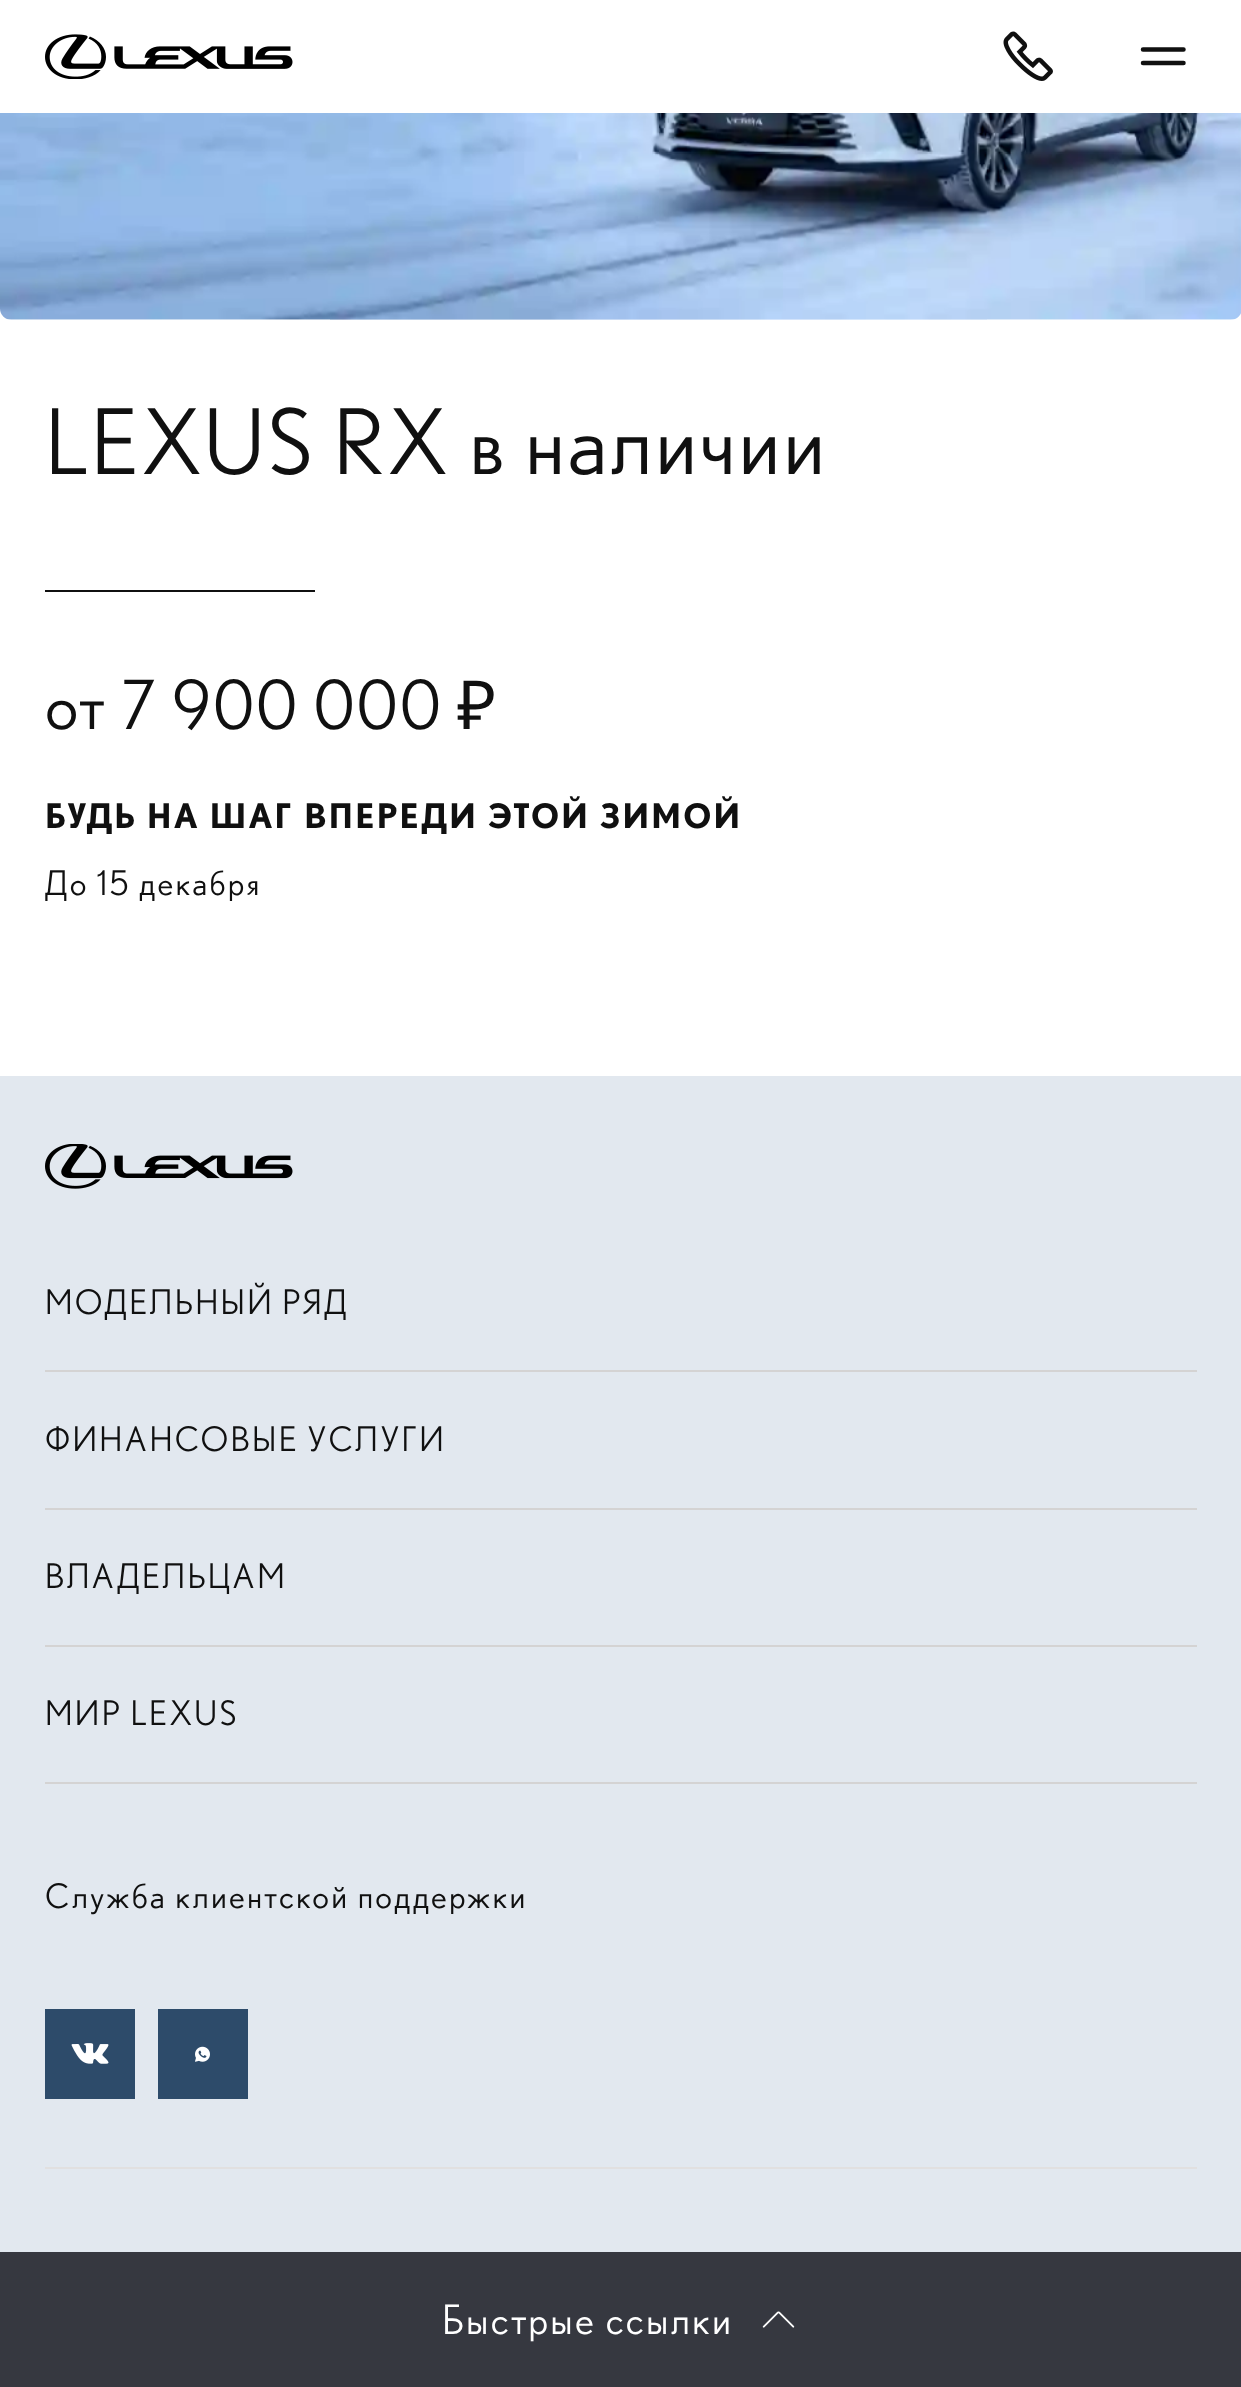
<?xml version="1.0" encoding="UTF-8"?>
<svg xmlns="http://www.w3.org/2000/svg" width="1241" height="2387">
    <rect width="100%" height="100%" fill="#FFFFFF"/>
    <image x="45" y="34" width="248" height="45" href="img_01.png"/>
    <image x="1003" y="31" width="50" height="50" href="img_02.png"/>
    <path d="M 1143 49.5 H 1183.5 M 1143 63 H 1183.5" fill="none" stroke="#101010" stroke-width="4.5" stroke-linecap="round" stroke-linejoin="round"/>
    <image x="0" y="113" width="1241" height="207" href="img_03.png"/>
    <text x="45" y="474" font-family="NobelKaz" font-size="90" letter-spacing="2.25" fill="#101010">LEXUS RX в наличии</text>
    <rect x="45" y="590" width="270" height="2" fill="#101010"/>
    <text x="45" y="729" font-family="NobelKaz" font-size="67.5" letter-spacing="2.25" fill="#101010">от</text>
    <text x="121" y="729" font-family="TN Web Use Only" font-size="67.5" letter-spacing="2.25" fill="#101010">7 900 000</text>
    <text x="457" y="729" font-family="Noto Sans" font-size="67.5" letter-spacing="2.25" fill="#101010">₽</text>
    <text x="45" y="828" font-family="NobelKaz" font-size="33.75" font-weight="700" letter-spacing="2.25" fill="#101010">БУДЬ НА ШАГ ВПЕРЕДИ ЭТОЙ ЗИМОЙ</text>
    <text x="45" y="895" font-family="NobelKaz" font-size="33.75" letter-spacing="2.25" fill="#101010">До 15 декабря</text>
    <rect x="0" y="1076" width="1241" height="1176" fill="#E2E8EF"/>
    <text x="45" y="1314" font-family="NobelKaz" font-size="33.75" letter-spacing="2.25" fill="#101010">МОДЕЛЬНЫЙ РЯД</text>
    <rect x="45" y="1370" width="1152" height="2" fill="#D4D3D3"/>
    <text x="45" y="1451" font-family="NobelKaz" font-size="33.75" letter-spacing="2.25" fill="#101010">ФИНАНСОВЫЕ УСЛУГИ</text>
    <rect x="45" y="1508" width="1152" height="2" fill="#D4D3D3"/>
    <text x="45" y="1588" font-family="NobelKaz" font-size="33.75" letter-spacing="2.25" fill="#101010">ВЛАДЕЛЬЦАМ</text>
    <rect x="45" y="1645" width="1152" height="2" fill="#D4D3D3"/>
    <text x="45" y="1725" font-family="NobelKaz" font-size="33.75" letter-spacing="2.25" fill="#101010">МИР LEXUS</text>
    <rect x="45" y="1782" width="1152" height="2" fill="#D4D3D3"/>
    <image x="45" y="1144" width="248" height="45" href="img_04.png"/>
    <text x="45" y="1908" font-family="NobelKaz" font-size="33.75" letter-spacing="2.25" fill="#101010">Служба клиентской поддержки</text>
    <rect x="45" y="2009" width="90" height="90" fill="#2D4B6A"/>
    <image x="71" y="2043" width="38" height="21" href="img_05.png"/>
    <rect x="158" y="2009" width="90" height="90" fill="#2D4B6A"/>
    <image x="195" y="2046" width="15" height="16" href="img_06.png"/>
    <rect x="45" y="2167" width="1152" height="2" fill="#E1E0E0"/>
    <rect x="0" y="2252" width="1241" height="135" fill="#363840"/>
    <text x="442" y="2334" font-family="NobelKaz" font-size="40.5" letter-spacing="2.25" fill="#FFFFFF">Быстрые ссылки</text>
    <image x="762" y="2311" width="33" height="17" href="img_07.png"/>
</svg>
